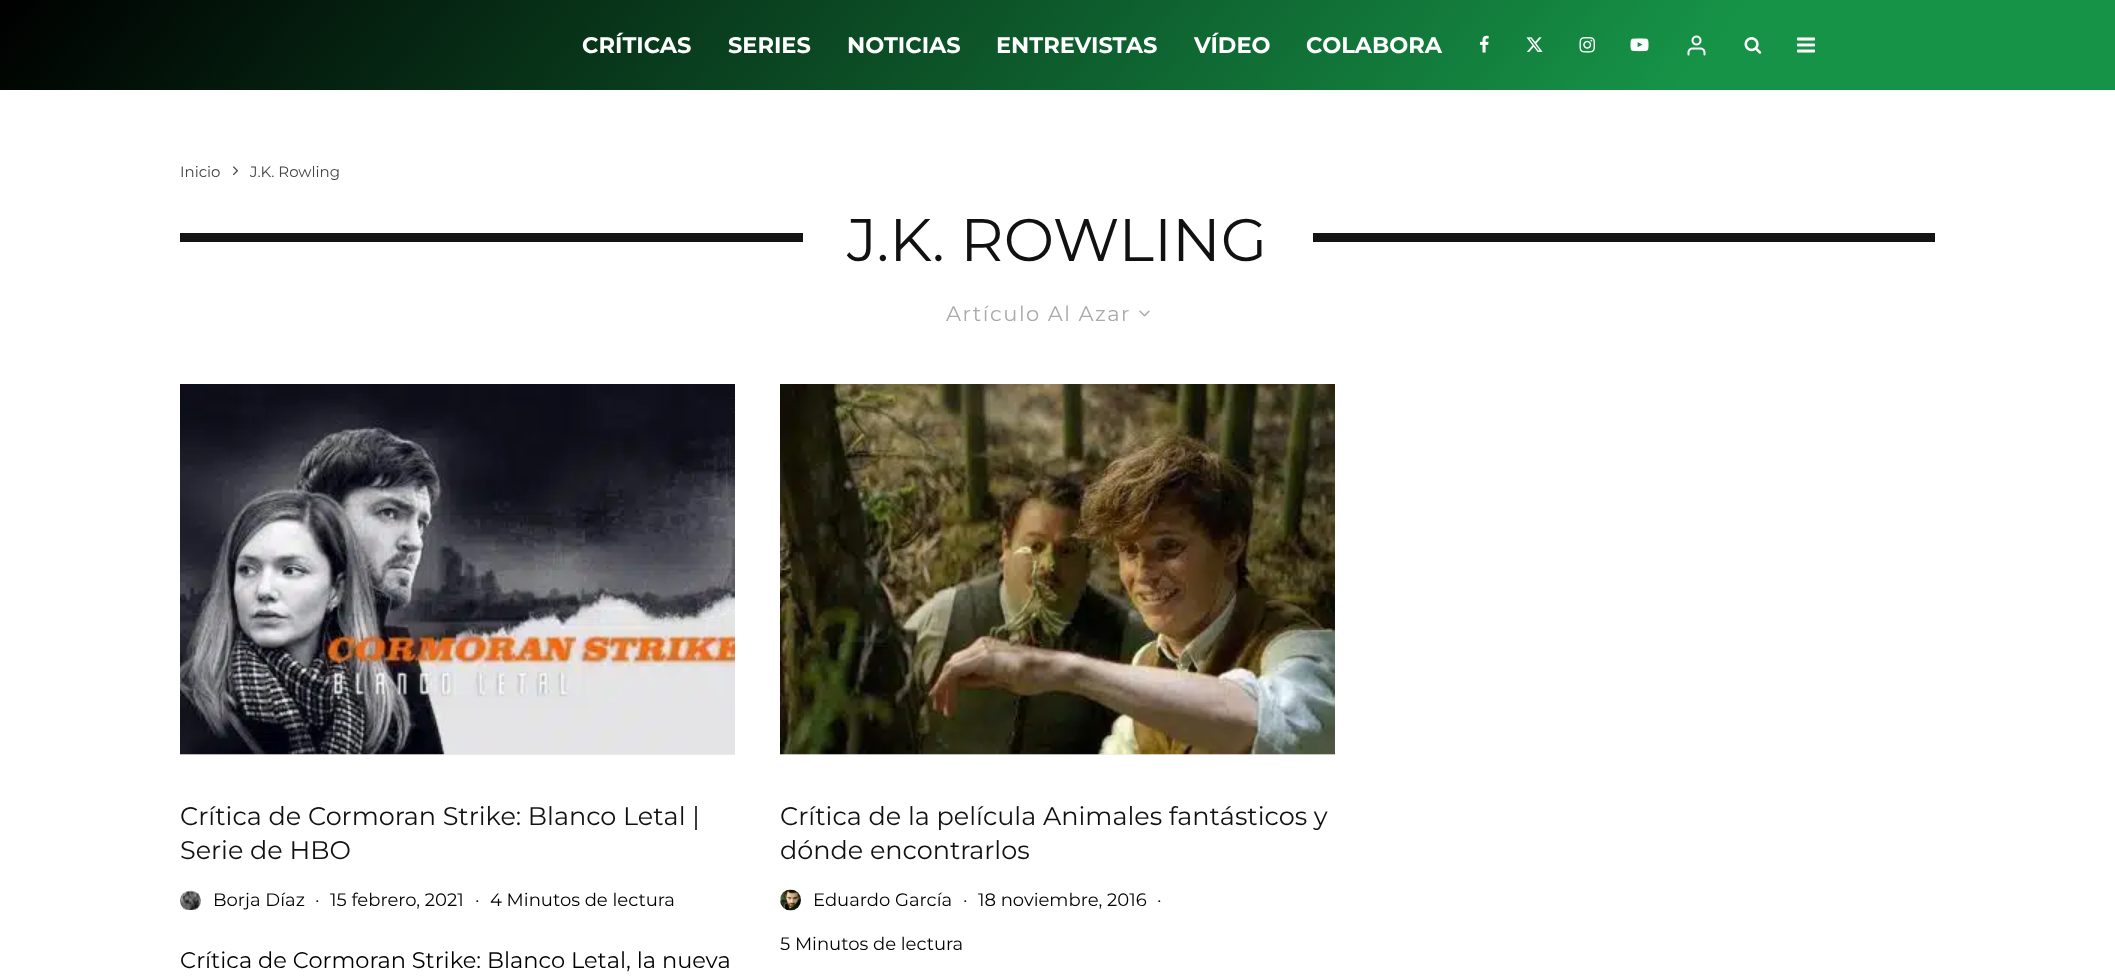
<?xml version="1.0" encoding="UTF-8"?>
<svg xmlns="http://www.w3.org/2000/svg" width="2115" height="979">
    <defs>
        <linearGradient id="g1" gradientUnits="userSpaceOnUse" x1="415" y1="-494" x2="1700" y2="584"><stop offset="0" stop-color="#000000"/><stop offset="0.8" stop-color="#169347"/></linearGradient>
    </defs>
    <rect width="100%" height="100%" fill="#FFFFFF"/>
    <rect x="0" y="0" width="2115" height="90" fill="url(#g1)"/>
    <text x="582" y="53" font-family="Montserrat" font-size="22.5" font-weight="700" fill="#FFFFFF">CRÍTICAS</text>
    <text x="728" y="53" font-family="Montserrat" font-size="22.5" font-weight="700" fill="#FFFFFF">SERIES</text>
    <text x="847" y="53" font-family="Montserrat" font-size="22.5" font-weight="700" fill="#FFFFFF">NOTICIAS</text>
    <text x="996" y="53" font-family="Montserrat" font-size="22.5" font-weight="700" fill="#FFFFFF">ENTREVISTAS</text>
    <text x="1194" y="53" font-family="Montserrat" font-size="22.5" font-weight="700" fill="#FFFFFF">VÍDEO</text>
    <text x="1306" y="53" font-family="Montserrat" font-size="22.5" font-weight="700" fill="#FFFFFF">COLABORA</text>
    <image x="1479" y="35" width="10" height="18" href="img_01.png"/>
    <image x="1526" y="37" width="17" height="15" href="img_02.png"/>
    <image x="1579" y="37" width="16" height="16" href="img_03.png"/>
    <image x="1630" y="38" width="19" height="14" href="img_04.png"/>
    <image x="1687" y="35" width="19" height="21" href="img_05.png"/>
    <image x="1744" y="37" width="18" height="17" href="img_06.png"/>
    <image x="1797" y="37" width="18" height="16" href="img_07.png"/>
    <text x="180" y="177" font-family="Montserrat" font-size="15" fill="#444444">Inicio</text>
    <image x="233" y="166" width="5" height="10" href="img_08.png"/>
    <text x="250" y="177" font-family="Montserrat" font-size="15" fill="#444444">J.K. Rowling</text>
    <rect x="180" y="233" width="623" height="9" fill="#141414"/>
    <text x="847" y="261" font-family="Montserrat" font-size="60" fill="#111111">J.K. ROWLING</text>
    <rect x="1313" y="233" width="622" height="9" fill="#141414"/>
    <text x="946" y="321" font-family="Montserrat" font-size="21" letter-spacing="1.5" fill="#AAAAAA">Artículo Al Azar</text>
    <image x="1139" y="310" width="11" height="7" href="img_09.png"/>
    <rect x="180" y="754" width="555" height="1" fill="#EEEEEE"/>
    <image x="180" y="384" width="555" height="371" href="img_10.png"/>
    <text font-family="Montserrat" font-size="25.5" fill="#111111">
        <tspan x="180" y="825">Crítica de Cormoran Strike: Blanco Letal |</tspan>
        <tspan x="180" y="859">Serie de HBO</tspan>
    </text>
    <image x="180" y="890" width="21" height="20" href="img_11.png"/>
    <text x="213" y="906" font-family="Montserrat" font-size="18" fill="#000000">Borja Díaz</text>
    <text x="315" y="906" font-family="Montserrat" font-size="18" fill="#000000">·</text>
    <text x="330" y="906" font-family="Montserrat" font-size="18" fill="#000000">15 febrero, 2021</text>
    <text x="475" y="906" font-family="Montserrat" font-size="18" fill="#000000">·</text>
    <text x="490" y="906" font-family="Montserrat" font-size="18" fill="#000000">4 Minutos de lectura</text>
    <text x="180" y="968" font-family="Montserrat" font-size="22.5" fill="#000000">Crítica de Cormoran Strike: Blanco Letal, la nueva</text>
    <rect x="780" y="754" width="555" height="1" fill="#EEEEEE"/>
    <image x="780" y="384" width="555" height="371" href="img_12.png"/>
    <text font-family="Montserrat" font-size="25.5" fill="#111111">
        <tspan x="780" y="825">Crítica de la película Animales fantásticos y</tspan>
        <tspan x="780" y="859">dónde encontrarlos</tspan>
    </text>
    <image x="780" y="889" width="21" height="22" href="img_13.png"/>
    <text x="813" y="906" font-family="Montserrat" font-size="18" fill="#000000">Eduardo García</text>
    <text x="963" y="906" font-family="Montserrat" font-size="18" fill="#000000">·</text>
    <text x="978" y="906" font-family="Montserrat" font-size="18" fill="#000000">18 noviembre, 2016</text>
    <text x="1157" y="906" font-family="Montserrat" font-size="18" fill="#000000">·</text>
    <text x="780" y="950" font-family="Montserrat" font-size="18" fill="#000000">5 Minutos de lectura</text>
</svg>
